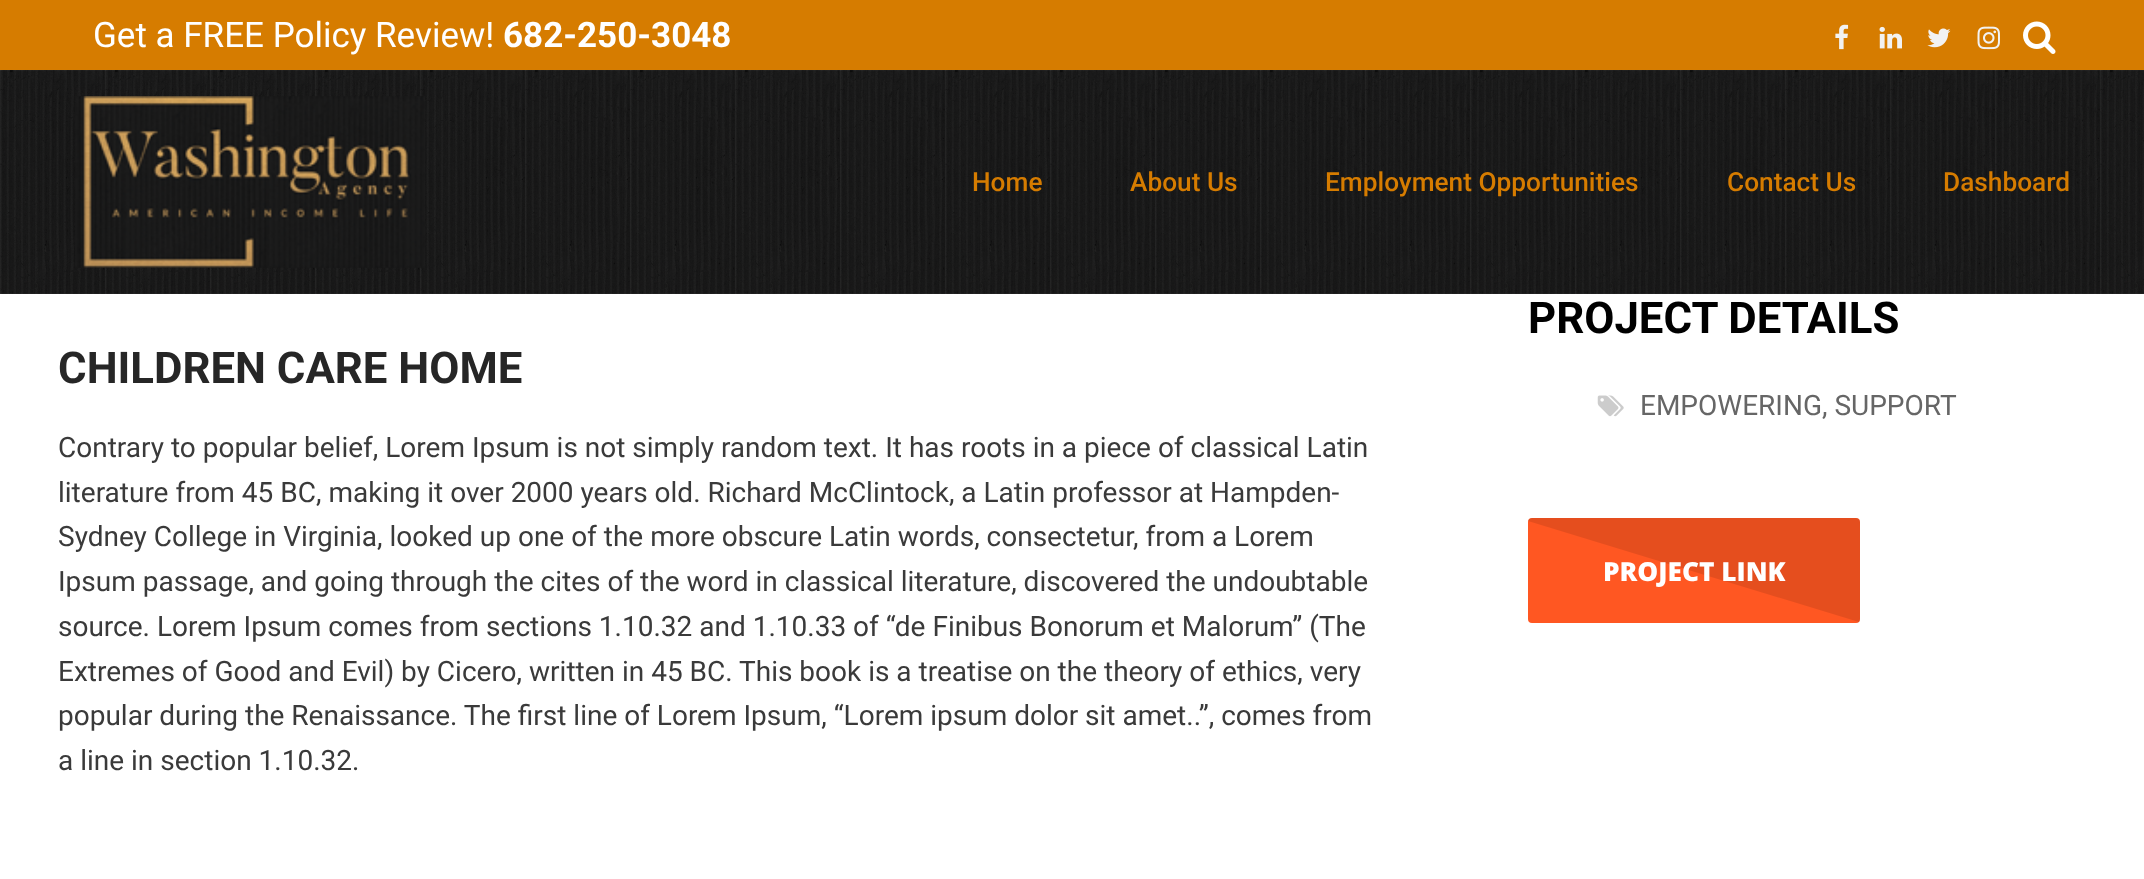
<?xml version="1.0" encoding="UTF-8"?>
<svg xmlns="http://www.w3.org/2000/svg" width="2144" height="879">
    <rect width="100%" height="100%" fill="#FFFFFF"/>
    <rect x="0" y="0" width="2144" height="70" fill="#D67C00"/>
    <text x="93" y="47" font-family="Roboto" font-size="35" fill="#FFFFFF">Get a FREE Policy Review!</text>
    <text x="503" y="47" font-family="Roboto" font-size="35" font-weight="700" fill="#FFFFFF">682-250-3048</text>
    <image x="1835" y="24" width="14" height="26" href="img_01.png"/>
    <image x="1879" y="26" width="23" height="23" href="img_02.png"/>
    <image x="1927" y="28" width="24" height="20" href="img_03.png"/>
    <image x="1977" y="26" width="23" height="24" href="img_04.png"/>
    <image x="2023" y="21" width="33" height="33" href="img_05.png"/>
    <image x="0" y="70" width="2144" height="224" href="img_06.png"/>
    <image x="75" y="96" width="350" height="172" href="img_07.png"/>
    <text x="972" y="191" font-family="Roboto" font-size="26.25" font-weight="500" fill="#D67C00">Home</text>
    <text x="1130" y="191" font-family="Roboto" font-size="26.25" font-weight="500" fill="#D67C00">About Us</text>
    <text x="1325" y="191" font-family="Roboto" font-size="26.25" font-weight="500" fill="#D67C00">Employment Opportunities</text>
    <text x="1727" y="191" font-family="Roboto" font-size="26.25" font-weight="500" fill="#D67C00">Contact Us</text>
    <text x="1943" y="191" font-family="Roboto" font-size="26.25" font-weight="500" fill="#D67C00">Dashboard</text>
    <text x="58" y="383" font-family="Roboto" font-size="43.75" font-weight="700" fill="#262626">CHILDREN CARE HOME</text>
    <text font-family="Roboto" font-size="28" fill="#3A3A3A">
        <tspan x="58" y="457">Contrary to popular belief, Lorem Ipsum is not simply random text. It has roots in a piece of classical Latin</tspan>
        <tspan x="58" y="502">literature from 45 BC, making it over 2000 years old. Richard McClintock, a Latin professor at Hampden-</tspan>
        <tspan x="58" y="546">Sydney College in Virginia, looked up one of the more obscure Latin words, consectetur, from a Lorem</tspan>
        <tspan x="58" y="591">Ipsum passage, and going through the cites of the word in classical literature, discovered the undoubtable</tspan>
        <tspan x="58" y="636">source. Lorem Ipsum comes from sections 1.10.32 and 1.10.33 of “de Finibus Bonorum et Malorum” (The</tspan>
        <tspan x="58" y="681">Extremes of Good and Evil) by Cicero, written in 45 BC. This book is a treatise on the theory of ethics, very</tspan>
        <tspan x="58" y="725">popular during the Renaissance. The first line of Lorem Ipsum, “Lorem ipsum dolor sit amet..”, comes from</tspan>
        <tspan x="58" y="770">a line in section 1.10.32.</tspan>
    </text>
    <text x="1528" y="333" font-family="Roboto" font-size="43.75" font-weight="700" fill="#000000">PROJECT DETAILS</text>
    <image x="1597" y="395" width="27" height="22" href="img_08.png"/>
    <text x="1640" y="415" font-family="Roboto" font-size="28" fill="#666666">EMPOWERING, SUPPORT</text>
    <rect x="1528" y="518" width="332" height="105" rx="4" fill="#FF5722"/>
    <path d="M 1532 518 H 1856 C 1858 518 1860 520 1860 522 V 619 C 1860 620 1860 621 1859 622 L 1528 521 C 1529 519 1530 518 1532 518 Z" fill="#000000" fill-opacity="0.1"/>
    <text x="1603" y="581" font-family="Open Sans" font-size="26.25" font-weight="800" fill="#FFFFFF">PROJECT LINK</text>
</svg>
